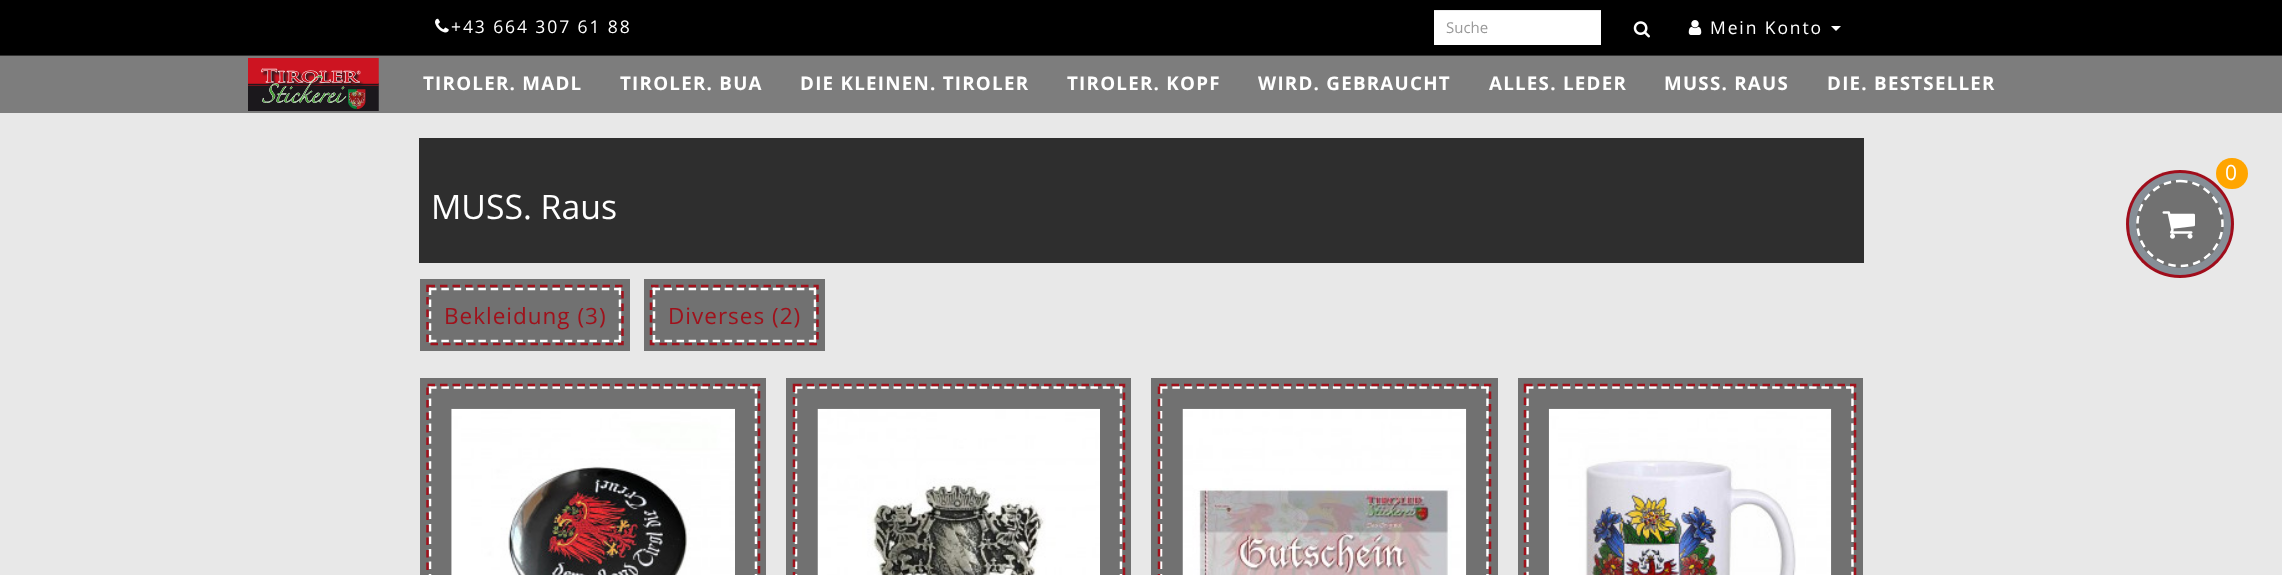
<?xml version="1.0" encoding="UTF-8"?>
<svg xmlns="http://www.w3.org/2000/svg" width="2282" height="575">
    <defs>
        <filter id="blur1" x="-50%" y="-200%" width="200%" height="500%"><feGaussianBlur stdDeviation="0.5"/></filter>
    </defs>
    <rect width="100%" height="100%" fill="#E8E8E8"/>
    <rect x="0" y="0" width="2282" height="55" fill="#000000"/>
    <rect x="0" y="55" width="2282" height="1" fill="#333333"/>
    <image x="435" y="18" width="14" height="15" href="img_01.png"/>
    <text x="451" y="33" font-family="Open Sans" font-size="17.5" letter-spacing="1.9" fill="#FFFFFF">+43 664 307 61 88</text>
    <rect x="1434" y="11" width="167" height="34" fill="#FFFFFF"/>
    <rect x="1434" y="10" width="167" height="1" fill="#ECECEC"/>
    <text x="1446" y="33" font-family="Open Sans" font-size="15" fill="#999999">Suche</text>
    <image x="1633" y="21" width="17" height="17" href="img_02.png"/>
    <image x="1688" y="20" width="14" height="15" href="img_03.png"/>
    <text x="1710" y="34" font-family="Open Sans" font-size="17.5" letter-spacing="1.9" fill="#FFFFFF">Mein Konto</text>
    <path d="M 1831 26 H 1841 L 1836 31 Z" fill="#FFFFFF"/>
    <rect x="2126" y="170" width="108" height="108" rx="54" fill="#A0111B" filter="url(#blur1)"/>
    <circle cx="2180" cy="224" r="47" fill="none" stroke="#868E96" stroke-width="8"/>
    <circle cx="2180" cy="224" r="44" fill="#717171"/>
    <path d="M 2180 181 C 2203.5 181 2222.5 200.5 2222.5 224 C 2222.5 247 2203.5 266 2180 266 C 2156.5 266 2137.5 247 2137.5 224 C 2137.5 200.5 2156.5 181 2180 181 Z" fill="none" stroke="#FFFFFF" stroke-width="2.5" stroke-dasharray="7.5 5"/>
    <rect x="2216" y="158" width="32" height="31" rx="15.5" fill="#FFA500"/>
    <text x="2225" y="180" font-family="Open Sans" font-size="21" letter-spacing="1.25" fill="#FFFFFF">0</text>
    <image x="2162" y="211" width="33" height="28" href="img_04.png"/>
    <rect x="0" y="56" width="2282" height="57" fill="#7D7D7D"/>
    <image x="248" y="58" width="131" height="53" href="img_05.png"/>
    <text x="423" y="90" font-family="Open Sans" font-size="18.75" font-weight="700" letter-spacing="1.25" fill="#FFFFFF">TIROLER. MADL</text>
    <text x="620" y="90" font-family="Open Sans" font-size="18.75" font-weight="700" letter-spacing="1.25" fill="#FFFFFF">TIROLER. BUA</text>
    <text x="800" y="90" font-family="Open Sans" font-size="18.75" font-weight="700" letter-spacing="1.25" fill="#FFFFFF">DIE KLEINEN. TIROLER</text>
    <text x="1067" y="90" font-family="Open Sans" font-size="18.75" font-weight="700" letter-spacing="1.25" fill="#FFFFFF">TIROLER. KOPF</text>
    <text x="1258" y="90" font-family="Open Sans" font-size="18.75" font-weight="700" letter-spacing="1.25" fill="#FFFFFF">WIRD. GEBRAUCHT</text>
    <text x="1489" y="90" font-family="Open Sans" font-size="18.75" font-weight="700" letter-spacing="1.25" fill="#FFFFFF">ALLES. LEDER</text>
    <text x="1664" y="90" font-family="Open Sans" font-size="18.75" font-weight="700" letter-spacing="1.25" fill="#FFFFFF">MUSS. RAUS</text>
    <text x="1827" y="90" font-family="Open Sans" font-size="18.75" font-weight="700" letter-spacing="1.25" fill="#FFFFFF">DIE. BESTSELLER</text>
    <rect x="419" y="138" width="1445" height="125" fill="#2E2E2E"/>
    <text x="431" y="219" font-family="Open Sans" font-size="33.75" fill="#FFFFFF">MUSS. Raus</text>
    <rect x="420" y="279" width="210" height="72" fill="#717171" filter="url(#blur1)"/>
    <path d="M 429 289 H 621" fill="none" stroke="#FFFFFF" stroke-width="2.5" stroke-dasharray="7.5 4.84"/>
    <path d="M 620 287.5 V 342.5" fill="none" stroke="#FFFFFF" stroke-width="2.5" stroke-dasharray="7.5 4.38"/>
    <path d="M 429 341 H 621" fill="none" stroke="#FFFFFF" stroke-width="2.5" stroke-dasharray="7.5 4.84"/>
    <path d="M 430 287.5 V 342.5" fill="none" stroke="#FFFFFF" stroke-width="2.5" stroke-dasharray="7.5 4.38"/>
    <path d="M 427.5 286 H 622.5 V 344 H 427.5 Z" fill="none" stroke="#A0111B" stroke-width="2.5" stroke-dasharray="7.5 5"/>
    <text x="444" y="324" font-family="Open Sans" font-size="22.5" letter-spacing="1" fill="#A0111B">Bekleidung (3)</text>
    <rect x="644" y="279" width="181" height="72" fill="#717171" filter="url(#blur1)"/>
    <path d="M 652.5 289 H 816" fill="none" stroke="#FFFFFF" stroke-width="2.5" stroke-dasharray="7.5 4.53"/>
    <path d="M 815 287.5 V 342.5" fill="none" stroke="#FFFFFF" stroke-width="2.5" stroke-dasharray="7.5 4.38"/>
    <path d="M 652.5 341 H 816" fill="none" stroke="#FFFFFF" stroke-width="2.5" stroke-dasharray="7.5 4.53"/>
    <path d="M 654 287.5 V 342.5" fill="none" stroke="#FFFFFF" stroke-width="2.5" stroke-dasharray="7.5 4.38"/>
    <path d="M 651 286 H 817.5 V 344 H 651 Z" fill="none" stroke="#A0111B" stroke-width="2.5" stroke-dasharray="7.5 5"/>
    <text x="668" y="324" font-family="Open Sans" font-size="22.5" letter-spacing="1" fill="#A0111B">Diverses (2)</text>
    <rect x="420" y="378" width="346" height="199" fill="#717171" filter="url(#blur1)"/>
    <path d="M 429 387.5 H 757.5" fill="none" stroke="#FFFFFF" stroke-width="2.5" stroke-dasharray="7.5 4.85"/>
    <path d="M 756 386 V 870" fill="none" stroke="#FFFFFF" stroke-width="2.5" stroke-dasharray="7.5 5.04"/>
    <path d="M 430 386 V 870" fill="none" stroke="#FFFFFF" stroke-width="2.5" stroke-dasharray="7.5 5.04"/>
    <path d="M 427.5 385 H 759 V 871 H 427.5 Z" fill="none" stroke="#A0111B" stroke-width="2.5" stroke-dasharray="7.5 5"/>
    <image x="451" y="408" width="284" height="167" href="img_06.png"/>
    <rect x="786" y="378" width="345" height="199" fill="#717171" filter="url(#blur1)"/>
    <path d="M 795 387.5 H 1122.5" fill="none" stroke="#FFFFFF" stroke-width="2.5" stroke-dasharray="7.5 4.81"/>
    <path d="M 1121 386 V 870" fill="none" stroke="#FFFFFF" stroke-width="2.5" stroke-dasharray="7.5 5.04"/>
    <path d="M 796 386 V 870" fill="none" stroke="#FFFFFF" stroke-width="2.5" stroke-dasharray="7.5 5.04"/>
    <path d="M 794 385 H 1124 V 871 H 794 Z" fill="none" stroke="#A0111B" stroke-width="2.5" stroke-dasharray="7.5 5"/>
    <image x="817" y="408" width="283" height="167" href="img_07.png"/>
    <rect x="1151" y="378" width="347" height="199" fill="#717171" filter="url(#blur1)"/>
    <path d="M 1160 387.5 H 1489" fill="none" stroke="#FFFFFF" stroke-width="2.5" stroke-dasharray="7.5 4.85"/>
    <path d="M 1487.5 386 V 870" fill="none" stroke="#FFFFFF" stroke-width="2.5" stroke-dasharray="7.5 5.04"/>
    <path d="M 1161 386 V 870" fill="none" stroke="#FFFFFF" stroke-width="2.5" stroke-dasharray="7.5 5.04"/>
    <path d="M 1159 385 H 1490 V 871 H 1159 Z" fill="none" stroke="#A0111B" stroke-width="2.5" stroke-dasharray="7.5 5"/>
    <image x="1182" y="408" width="285" height="167" href="img_08.png"/>
    <rect x="1518" y="378" width="345" height="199" fill="#717171" filter="url(#blur1)"/>
    <path d="M 1526 387.5 H 1854" fill="none" stroke="#FFFFFF" stroke-width="2.5" stroke-dasharray="7.5 4.81"/>
    <path d="M 1852.5 386 V 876" fill="none" stroke="#FFFFFF" stroke-width="2.5" stroke-dasharray="7.5 4.88"/>
    <path d="M 1527.5 386 V 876" fill="none" stroke="#FFFFFF" stroke-width="2.5" stroke-dasharray="7.5 4.88"/>
    <path d="M 1525 385 H 1855 V 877.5 H 1525 Z" fill="none" stroke="#A0111B" stroke-width="2.5" stroke-dasharray="7.5 5"/>
    <image x="1548" y="408" width="284" height="167" href="img_09.png"/>
</svg>
